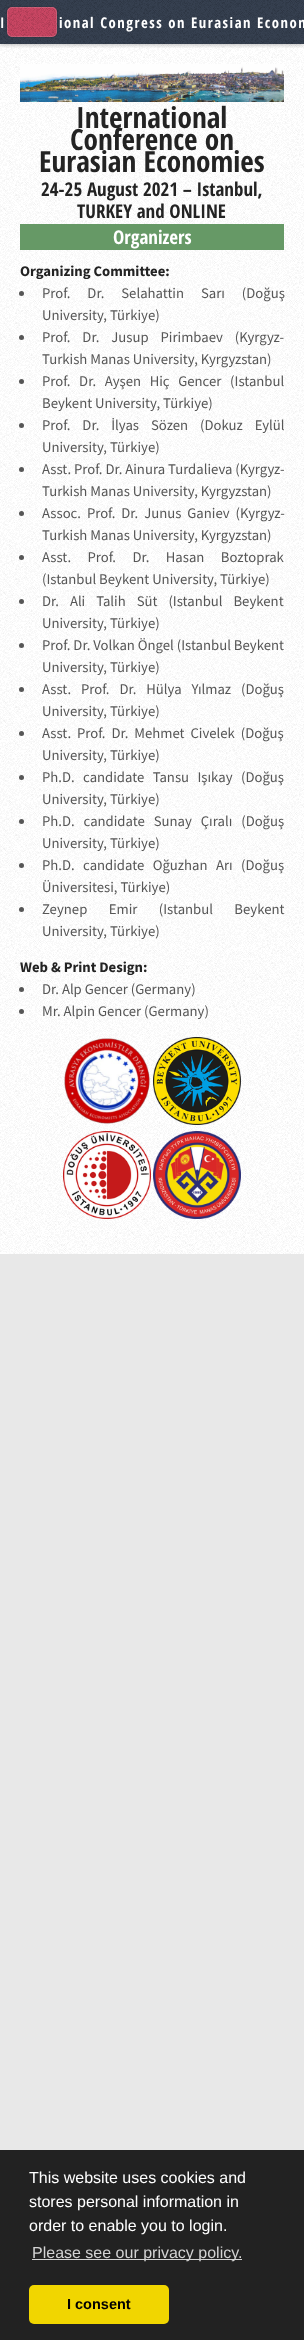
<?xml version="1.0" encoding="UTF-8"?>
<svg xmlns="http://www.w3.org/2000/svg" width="304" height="2340">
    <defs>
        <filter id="blur1" x="-50%" y="-200%" width="200%" height="500%"><feGaussianBlur stdDeviation="1"/></filter>
        <clipPath id="clip1"><rect x="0" y="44" width="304" height="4"/></clipPath>
        <filter id="blur2" x="-50%" y="-200%" width="200%" height="500%"><feGaussianBlur stdDeviation="2"/></filter>
    </defs>
    <rect width="100%" height="100%" fill="#E8E8E8"/>
    <rect x="0" y="0" width="304" height="44" fill="#364050"/>
    <image x="0" y="0" width="304" height="44" href="img_01.png"/>
    <rect x="7" y="7" width="50" height="30" rx="5" fill="#000000" fill-opacity="0.25" filter="url(#blur1)"/>
    <rect x="0" y="44" width="304" height="1210" fill="#FFFFFF"/>
    <image x="0" y="44" width="304" height="1210" href="img_03.png"/>
    <g clip-path="url(#clip1)">
        <rect x="0" y="1" width="304" height="44" fill="#000000" fill-opacity="0.25" filter="url(#blur2)"/>
    </g>
    <rect x="7" y="7" width="50" height="30" rx="5" fill="#C94663"/>
    <image x="7" y="7" width="50" height="30" href="img_02.png"/>
    <rect x="7.5" y="7.5" width="49" height="29" rx="4.5" fill="none" stroke="#FFFFFF" stroke-opacity="0.15"/>
    <text x="0" y="28" font-family="Open Sans Condensed" font-size="14.7" font-weight="700" letter-spacing="1.5" fill="#FFFFFF">I</text>
    <text x="59" y="28" font-family="Open Sans Condensed" font-size="14.7" font-weight="700" letter-spacing="1.5" fill="#FFFFFF">ional Congress on Eurasian Econom</text>
    <image x="20" y="64" width="264" height="38" href="img_04.png"/>
    <text x="76" y="128" font-family="Open Sans Condensed" font-size="29.25" font-weight="700" fill="#232323">International</text>
    <text x="70" y="150" font-family="Open Sans Condensed" font-size="29.25" font-weight="700" fill="#232323">Conference on</text>
    <text x="39" y="172" font-family="Open Sans Condensed" font-size="29.25" font-weight="700" fill="#232323">Eurasian Economies</text>
    <text x="41" y="196" font-family="Open Sans Condensed" font-size="19" font-weight="700" fill="#232323">24-25 August 2021 – Istanbul,</text>
    <text x="77" y="218" font-family="Open Sans Condensed" font-size="19" font-weight="700" fill="#232323">TURKEY and ONLINE</text>
    <rect x="20" y="224" width="264" height="26" fill="#669966"/>
    <text x="113" y="244" font-family="Open Sans Condensed" font-size="19" font-weight="700" fill="#FFFFFF">Organizers</text>
    <text x="20" y="276" font-family="Source Sans Pro" font-size="14.7" font-weight="700" fill="#232323">Organizing Committee:</text>
    <circle cx="21.5" cy="293.5" r="2.5" fill="#565656"/>
    <text font-family="Source Sans Pro" font-size="14.7" fill="#565656">
        <tspan x="42" y="298" word-spacing="14">Prof. Dr. Selahattin Sarı (Doğuş</tspan>
        <tspan x="42" y="320">University, Türkiye)</tspan>
    </text>
    <circle cx="21.5" cy="337.5" r="2.5" fill="#565656"/>
    <text font-family="Source Sans Pro" font-size="14.7" fill="#565656">
        <tspan x="42" y="342" word-spacing="9">Prof. Dr. Jusup Pirimbaev (Kyrgyz-</tspan>
        <tspan x="42" y="364">Turkish Manas University, Kyrgyzstan)</tspan>
    </text>
    <circle cx="21.5" cy="381.5" r="2.5" fill="#565656"/>
    <text font-family="Source Sans Pro" font-size="14.7" fill="#565656">
        <tspan x="42" y="386" word-spacing="5.75">Prof. Dr. Ayşen Hiç Gencer (Istanbul</tspan>
        <tspan x="42" y="408">Beykent University, Türkiye)</tspan>
    </text>
    <circle cx="21.5" cy="425.5" r="2.5" fill="#565656"/>
    <text font-family="Source Sans Pro" font-size="14.7" fill="#565656">
        <tspan x="42" y="430" word-spacing="9">Prof. Dr. İlyas Sözen (Dokuz Eylül</tspan>
        <tspan x="42" y="452">University, Türkiye)</tspan>
    </text>
    <circle cx="21.5" cy="469.5" r="2.5" fill="#565656"/>
    <text font-family="Source Sans Pro" font-size="14.7" fill="#565656">
        <tspan x="42" y="474">Asst. Prof. Dr. Ainura Turdalieva (Kyrgyz-</tspan>
        <tspan x="42" y="496">Turkish Manas University, Kyrgyzstan)</tspan>
    </text>
    <circle cx="21.5" cy="513.5" r="2.5" fill="#565656"/>
    <text font-family="Source Sans Pro" font-size="14.7" fill="#565656">
        <tspan x="42" y="518" word-spacing="3">Assoc. Prof. Dr. Junus Ganiev (Kyrgyz-</tspan>
        <tspan x="42" y="540">Turkish Manas University, Kyrgyzstan)</tspan>
    </text>
    <circle cx="21.5" cy="557.5" r="2.5" fill="#565656"/>
    <text font-family="Source Sans Pro" font-size="14.7" fill="#565656">
        <tspan x="42" y="562" word-spacing="13.5">Asst. Prof. Dr. Hasan Boztoprak</tspan>
        <tspan x="42" y="584">(Istanbul Beykent University, Türkiye)</tspan>
    </text>
    <circle cx="21.5" cy="601.5" r="2.5" fill="#565656"/>
    <text font-family="Source Sans Pro" font-size="14.7" fill="#565656">
        <tspan x="42" y="606" word-spacing="8">Dr. Ali Talih Süt (Istanbul Beykent</tspan>
        <tspan x="42" y="628">University, Türkiye)</tspan>
    </text>
    <circle cx="21.5" cy="645.5" r="2.5" fill="#565656"/>
    <text font-family="Source Sans Pro" font-size="14.7" fill="#565656">
        <tspan x="42" y="650">Prof. Dr. Volkan Öngel (Istanbul Beykent</tspan>
        <tspan x="42" y="672">University, Türkiye)</tspan>
    </text>
    <circle cx="21.5" cy="689.5" r="2.5" fill="#565656"/>
    <text font-family="Source Sans Pro" font-size="14.7" fill="#565656">
        <tspan x="42" y="694" word-spacing="7">Asst. Prof. Dr. Hülya Yılmaz (Doğuş</tspan>
        <tspan x="42" y="716">University, Türkiye)</tspan>
    </text>
    <circle cx="21.5" cy="733.5" r="2.5" fill="#565656"/>
    <text font-family="Source Sans Pro" font-size="14.7" fill="#565656">
        <tspan x="42" y="738" word-spacing="3">Asst. Prof. Dr. Mehmet Civelek (Doğuş</tspan>
        <tspan x="42" y="760">University, Türkiye)</tspan>
    </text>
    <circle cx="21.5" cy="777.5" r="2.5" fill="#565656"/>
    <text font-family="Source Sans Pro" font-size="14.7" fill="#565656">
        <tspan x="42" y="782" word-spacing="5.5">Ph.D. candidate Tansu Işıkay (Doğuş</tspan>
        <tspan x="42" y="804">University, Türkiye)</tspan>
    </text>
    <circle cx="21.5" cy="821.5" r="2.5" fill="#565656"/>
    <text font-family="Source Sans Pro" font-size="14.7" fill="#565656">
        <tspan x="42" y="826" word-spacing="6">Ph.D. candidate Sunay Çıralı (Doğuş</tspan>
        <tspan x="42" y="848">University, Türkiye)</tspan>
    </text>
    <circle cx="21.5" cy="865.5" r="2.5" fill="#565656"/>
    <text font-family="Source Sans Pro" font-size="14.7" fill="#565656">
        <tspan x="42" y="870" word-spacing="5.5">Ph.D. candidate Oğuzhan Arı (Doğuş</tspan>
        <tspan x="42" y="892">Üniversitesi, Türkiye)</tspan>
    </text>
    <circle cx="21.5" cy="909.5" r="2.5" fill="#565656"/>
    <text font-family="Source Sans Pro" font-size="14.7" fill="#565656">
        <tspan x="42" y="914" word-spacing="18.5">Zeynep Emir (Istanbul Beykent</tspan>
        <tspan x="42" y="936">University, Türkiye)</tspan>
    </text>
    <text x="20" y="972" font-family="Source Sans Pro" font-size="14.7" font-weight="700" fill="#232323">Web &amp; Print Design:</text>
    <circle cx="21.5" cy="989.5" r="2.5" fill="#565656"/>
    <text x="42" y="994" font-family="Source Sans Pro" font-size="14.7" fill="#565656">Dr. Alp Gencer (Germany)</text>
    <circle cx="21.5" cy="1011.5" r="2.5" fill="#565656"/>
    <text x="42" y="1016" font-family="Source Sans Pro" font-size="14.7" fill="#565656">Mr. Alpin Gencer (Germany)</text>
    <image x="64" y="1038" width="86" height="86" href="img_05.png"/>
    <image x="153" y="1037" width="88" height="88" href="img_06.png"/>
    <image x="63" y="1131" width="88" height="88" href="img_07.png"/>
    <image x="153" y="1131" width="88" height="88" href="img_08.png"/>
    <rect x="0" y="2150" width="304" height="190" fill="#222222"/>
    <text font-family="Liberation Sans" font-size="16" fill="#FFFFFF">
        <tspan x="29" y="2183">This website uses cookies and</tspan>
        <tspan x="29" y="2207">stores personal information in</tspan>
        <tspan x="29" y="2231">order to enable you to login.</tspan>
    </text>
    <rect x="32" y="2259" width="210" height="1" fill="#D3D3D3"/>
    <text x="32" y="2258" font-family="Liberation Sans" font-size="16" fill="#D3D3D3">Please see our privacy policy.</text>
    <rect x="29" y="2285" width="140" height="39" rx="5" fill="#F1D600"/>
    <text x="67" y="2309" font-family="Liberation Sans" font-size="14.5" font-weight="700" fill="#000000">I consent</text>
</svg>
